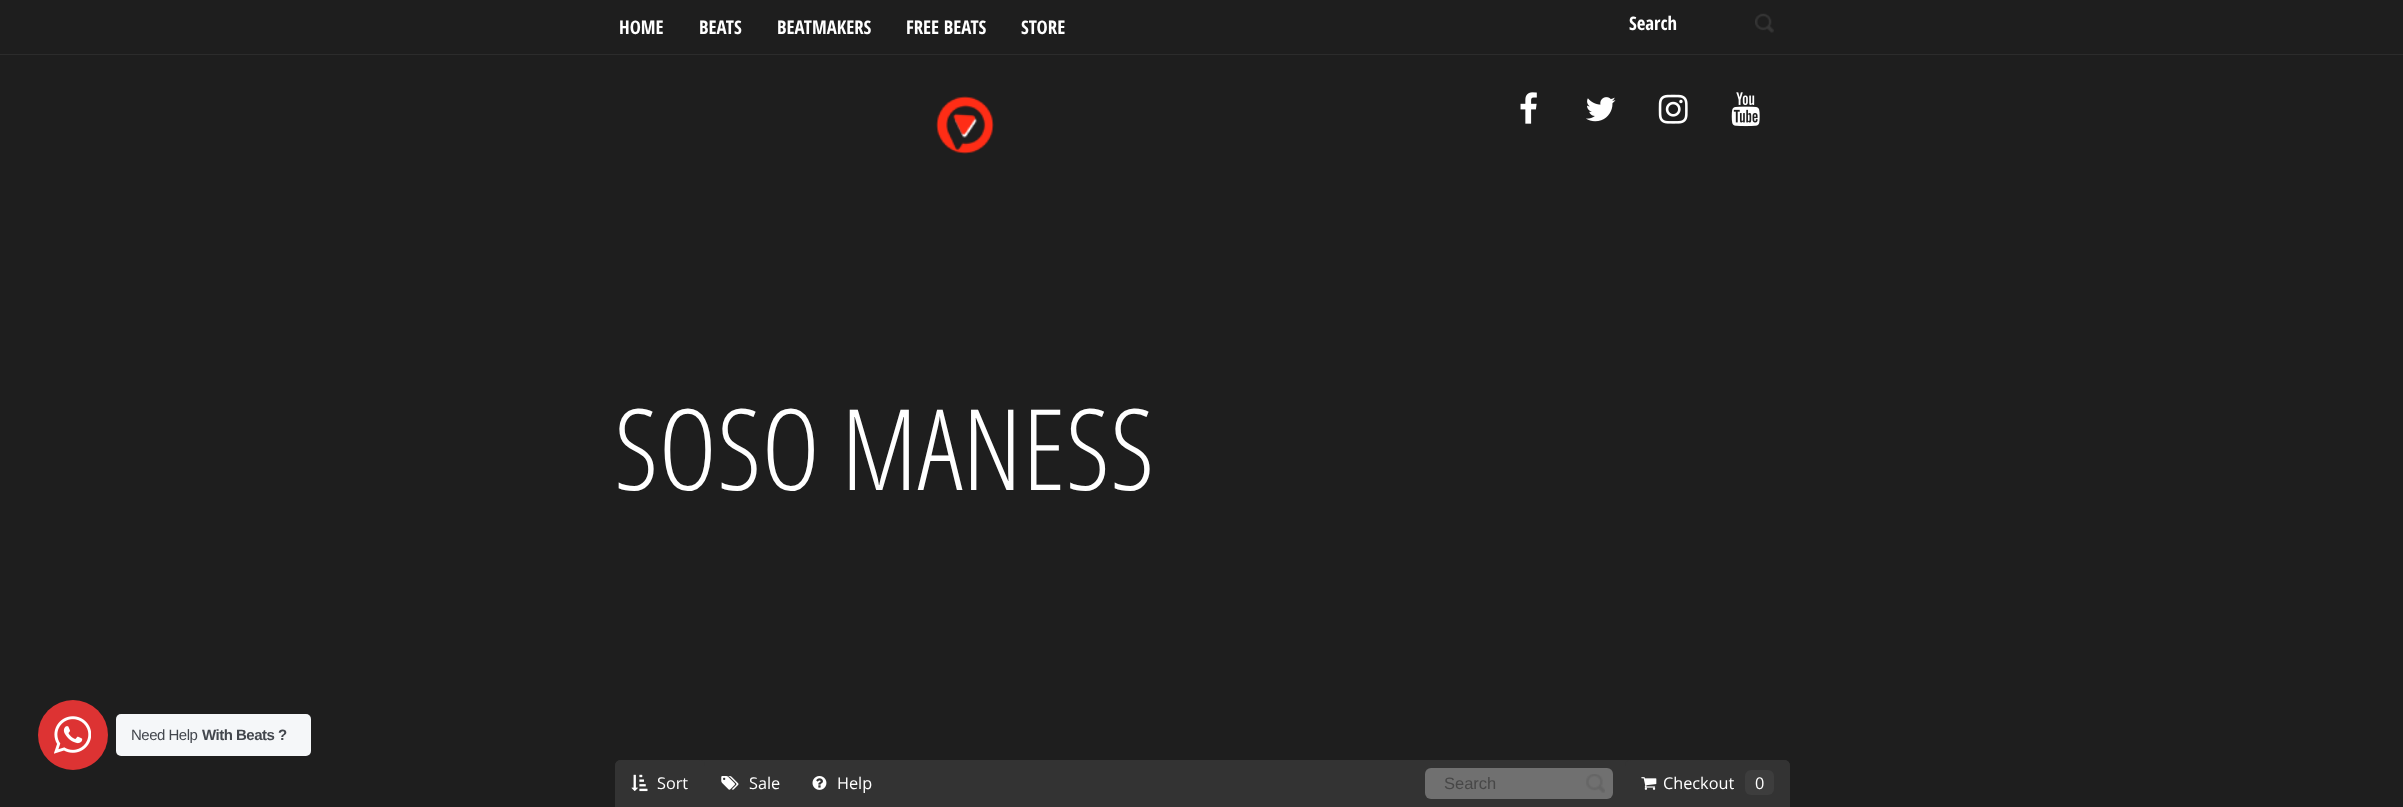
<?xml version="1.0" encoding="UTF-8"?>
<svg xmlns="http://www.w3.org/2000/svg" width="2403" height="807">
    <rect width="100%" height="100%" fill="#1E1E1E"/>
    <rect x="0" y="54" width="2403" height="1" fill="#2C2C2C"/>
    <text x="619" y="34" font-family="Open Sans Condensed" font-size="18.75" font-weight="700" fill="#FFFFFF">HOME</text>
    <text x="699" y="34" font-family="Open Sans Condensed" font-size="18.75" font-weight="700" fill="#FFFFFF">BEATS</text>
    <text x="777" y="34" font-family="Open Sans Condensed" font-size="18.75" font-weight="700" fill="#FFFFFF">BEATMAKERS</text>
    <text x="906" y="34" font-family="Open Sans Condensed" font-size="18.75" font-weight="700" fill="#FFFFFF">FREE BEATS</text>
    <text x="1021" y="34" font-family="Open Sans Condensed" font-size="18.75" font-weight="700" fill="#FFFFFF">STORE</text>
    <image x="1755" y="13" width="19" height="20" href="img_01.png"/>
    <text x="1629" y="30" font-family="Open Sans Condensed" font-size="18.75" font-weight="700" fill="#FFFFFF">Search</text>
    <image x="936" y="96" width="58" height="58" href="img_02.png"/>
    <image x="1520" y="92" width="17" height="32" href="img_03.png"/>
    <image x="1586" y="97" width="30" height="25" href="img_04.png"/>
    <image x="1658" y="94" width="30" height="30" href="img_05.png"/>
    <image x="1731" y="92" width="29" height="35" href="img_06.png"/>
    <text x="614" y="490" font-family="Open Sans Condensed" font-size="112.5" font-weight="300" fill="#FFFFFF">SOSO MANESS</text>
    <circle cx="73" cy="735" r="35" fill="#DD3333"/>
    <image x="54" y="716" width="37" height="38" href="img_07.png"/>
    <rect x="116" y="714" width="195" height="42" rx="5" fill="#F5F7F9"/>
    <text x="131" y="740" font-family="Liberation Sans" font-size="15" letter-spacing="-0.5" fill="#43474E">Need Help</text>
    <text x="202" y="740" font-family="Liberation Sans" font-size="15" font-weight="700" letter-spacing="-0.5" fill="#43474E">With Beats ?</text>
    <path d="M 621 760 H 1784 C 1787.5 760 1790 762.5 1790 766 V 804 H 615 V 766 C 615 762.5 617.5 760 621 760 Z" fill="#333333"/>
    <path d="M 621 760 H 699 C 702.5 760 705 762.5 705 766 V 804 H 615 V 766 C 615 762.5 617.5 760 621 760 Z" fill="#333333"/>
    <image x="631" y="774" width="17" height="18" href="img_08.png"/>
    <text x="657" y="789" font-family="Open Sans" font-size="16.25" fill="#FFFFFF">Sort</text>
    <image x="721" y="776" width="18" height="14" href="img_09.png"/>
    <text x="749" y="789" font-family="Open Sans" font-size="16.25" fill="#FFFFFF">Sale</text>
    <image x="812" y="776" width="15" height="14" href="img_10.png"/>
    <text x="837" y="789" font-family="Open Sans" font-size="16.25" fill="#FFFFFF">Help</text>
    <rect x="1425" y="768" width="188" height="31" rx="6" fill="#707070"/>
    <image x="1586" y="774" width="19" height="19" href="img_11.png"/>
    <text x="1444" y="789" font-family="Liberation Sans" font-size="16.5" fill="#474747">Search</text>
    <path d="M 1631 760 H 1784 C 1787.5 760 1790 762.5 1790 766 V 804 H 1625 V 766 C 1625 762.5 1627.5 760 1631 760 Z" fill="#333333"/>
    <image x="1641" y="777" width="16" height="13" href="img_12.png"/>
    <text x="1663" y="789" font-family="Open Sans" font-size="16.25" fill="#FFFFFF">Checkout</text>
    <rect x="1745" y="770" width="29" height="25" rx="6" fill="#3D3D3D"/>
    <text x="1755" y="789" font-family="Open Sans" font-size="16.25" fill="#FFFFFF">0</text>
    <rect x="615" y="804" width="1175" height="3" fill="#333333"/>
</svg>
